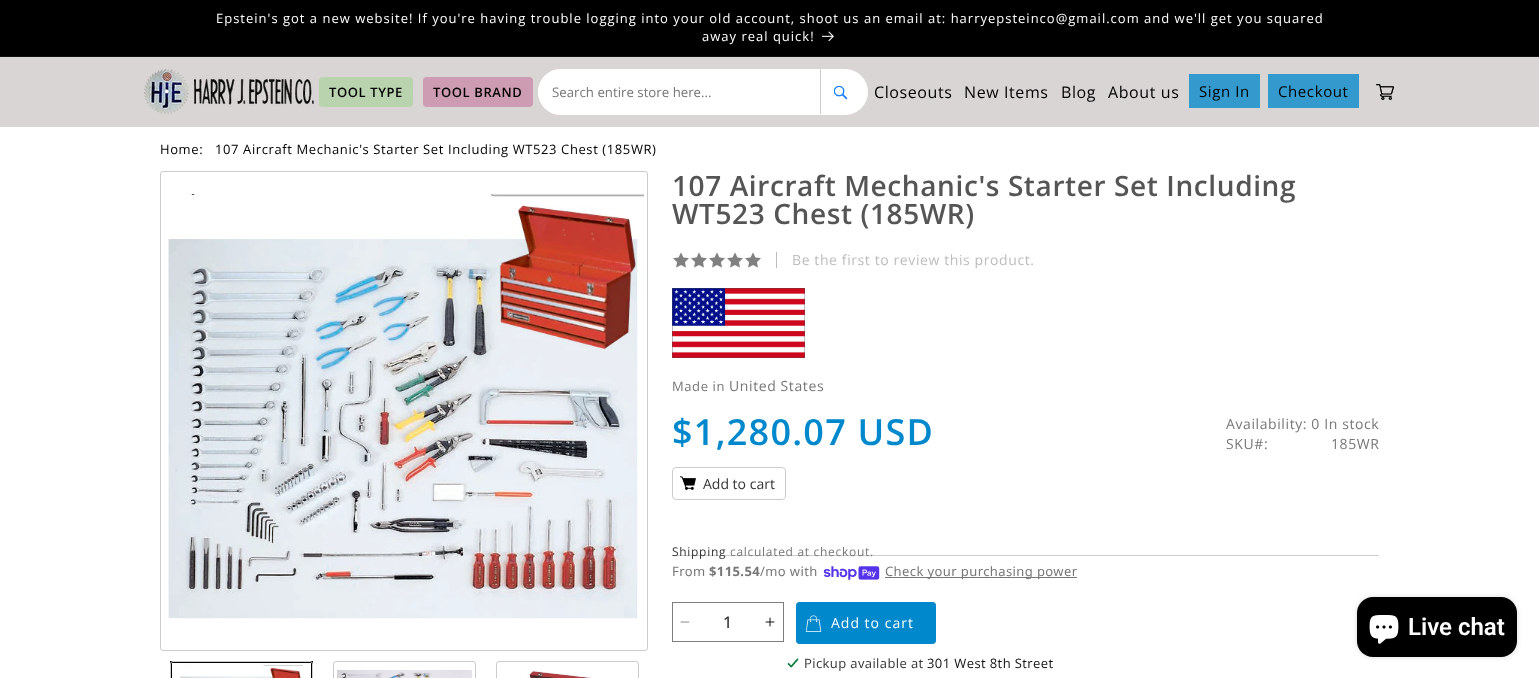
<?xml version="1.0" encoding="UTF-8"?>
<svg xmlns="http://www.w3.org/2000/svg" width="1539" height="678">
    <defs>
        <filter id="blur1" x="-50%" y="-200%" width="200%" height="500%"><feGaussianBlur stdDeviation="2.5"/></filter>
    </defs>
    <rect width="100%" height="100%" fill="#FFFFFF"/>
    <rect x="0" y="0" width="1539" height="56" fill="#000000"/>
    <rect x="0" y="56" width="1539" height="1" fill="#141414"/>
    <text x="216" y="23" font-family="Open Sans" font-size="13" letter-spacing="1" fill="#FFFFFF">Epstein's got a new website! If you're having trouble logging into your old account, shoot us an email at: harryepsteinco@gmail.com and we'll get you squared</text>
    <text x="702" y="41" font-family="Open Sans" font-size="13" letter-spacing="1" fill="#FFFFFF">away real quick!</text>
    <image x="822" y="31" width="12" height="11" href="img_01.png"/>
    <rect x="0" y="57" width="1539" height="70" fill="#D9D5D4"/>
    <image x="144" y="69" width="170" height="45" href="img_02.png"/>
    <rect x="319" y="77" width="94" height="30" rx="4" fill="#B9D3AE"/>
    <text x="329" y="97" font-family="Open Sans" font-size="13" font-weight="600" letter-spacing="0.6" fill="#000000">TOOL TYPE</text>
    <rect x="423" y="77" width="110" height="30" rx="4" fill="#CE9CB2"/>
    <text x="433" y="97" font-family="Open Sans" font-size="13" font-weight="600" letter-spacing="0.6" fill="#000000">TOOL BRAND</text>
    <rect x="538" y="69" width="330" height="46" rx="23" fill="#FFFFFF"/>
    <path d="M 561 69 H 821 V 113 C 821 114 820 115 819 115 H 561 C 548.5 115 538 104.5 538 92 C 538 79.5 548.5 69 561 69 Z" fill="#FFFFFF"/>
    <rect x="820" y="69" width="1" height="45" fill="#CCCCCC"/>
    <text x="552" y="97" font-family="Open Sans" font-size="13.25" fill="#777777">Search entire store here...</text>
    <image x="833" y="85" width="15" height="15" href="img_03.png"/>
    <text x="874" y="98" font-family="Open Sans" font-size="16" letter-spacing="0.6" fill="#000000">Closeouts</text>
    <text x="964" y="98" font-family="Open Sans" font-size="16" letter-spacing="0.6" fill="#000000">New Items</text>
    <text x="1061" y="98" font-family="Open Sans" font-size="16" letter-spacing="0.6" fill="#000000">Blog</text>
    <text x="1108" y="98" font-family="Open Sans" font-size="16" letter-spacing="0.6" fill="#000000">About us</text>
    <rect x="1189" y="74" width="71" height="34" fill="#3499CC"/>
    <text x="1199" y="97" font-family="Open Sans" font-size="15" letter-spacing="0.6" fill="#000000">Sign In</text>
    <rect x="1268" y="74" width="91" height="34" fill="#3499CC"/>
    <text x="1278" y="97" font-family="Open Sans" font-size="15" letter-spacing="0.6" fill="#000000">Checkout</text>
    <image x="1376" y="84" width="18" height="16" href="img_04.png"/>
    <text x="160" y="154" font-family="Open Sans" font-size="13" letter-spacing="0.6" fill="#000000">Home:</text>
    <text x="215" y="154" font-family="Open Sans" font-size="13" letter-spacing="0.6" fill="#000000">107 Aircraft Mechanic's Starter Set Including WT523 Chest (185WR)</text>
    <rect x="160.5" y="171.5" width="487" height="479" rx="2.5" fill="none" stroke="#CCCCCC"/>
    <image x="168" y="194" width="476" height="425" href="img_05.png"/>
    <rect x="171" y="662" width="141" height="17" fill="none" stroke="#000000" stroke-width="2"/>
    <rect x="170.5" y="661.5" width="142" height="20" rx="2.5" fill="none" stroke="#CCCCCC"/>
    <image x="180" y="665" width="123" height="13" href="img_06.png"/>
    <rect x="333.5" y="661.5" width="142" height="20" rx="2.5" fill="none" stroke="#CCCCCC"/>
    <image x="337" y="670" width="135" height="8" href="img_07.png"/>
    <rect x="496.5" y="661.5" width="142" height="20" rx="2.5" fill="none" stroke="#CCCCCC"/>
    <image x="527" y="671" width="68" height="7" href="img_08.png"/>
    <text font-family="Open Sans" font-size="28" font-weight="600" letter-spacing="0.6" fill="#555555">
        <tspan x="672" y="196">107 Aircraft Mechanic's Starter Set Including</tspan>
        <tspan x="672" y="224">WT523 Chest (185WR)</tspan>
    </text>
    <image x="673" y="252" width="16" height="16" href="img_09.png"/>
    <image x="691" y="252" width="16" height="16" href="img_09.png"/>
    <image x="709" y="252" width="16" height="16" href="img_09.png"/>
    <image x="727" y="252" width="16" height="16" href="img_09.png"/>
    <image x="745" y="252" width="16" height="16" href="img_09.png"/>
    <rect x="776" y="252" width="1" height="16" fill="#BDBDBD"/>
    <text x="792" y="265" font-family="Open Sans" font-size="14" letter-spacing="0.6" fill="#BDBDBD">Be the first to review this product.</text>
    <image x="672" y="288" width="133" height="70" href="img_10.png"/>
    <text x="672" y="391" font-family="Open Sans" font-size="13" letter-spacing="0.6" fill="#777777">Made in</text>
    <text x="729" y="391" font-family="Open Sans" font-size="14" letter-spacing="0.6" fill="#777777">United States</text>
    <rect x="672" y="555" width="707" height="1" fill="#CCCCCC"/>
    <text x="672" y="445" font-family="Open Sans" font-size="36" font-weight="600" letter-spacing="1.25" fill="#0088CC">$1,280.07 USD</text>
    <image x="680" y="476" width="16" height="14" href="img_11.png"/>
    <rect x="672.5" y="467.5" width="113" height="32" rx="3.5" fill="none" stroke="#CCCCCC"/>
    <text x="703" y="489" font-family="Open Sans" font-size="14" fill="#353535">Add to cart</text>
    <text font-family="Open Sans" font-size="14" letter-spacing="0.6" fill="#777777">
        <tspan x="1226" y="429">Availability: 0 In stock</tspan>
        <tspan x="1226" y="449">SKU#:</tspan>
    </text>
    <text x="1331" y="449" font-family="Open Sans" font-size="14" letter-spacing="0.6" fill="#777777">185WR</text>
    <text x="672" y="556" font-family="Open Sans" font-size="12" letter-spacing="0.7" fill="#353535">Shipping</text>
    <text x="730" y="556" font-family="Open Sans" font-size="12" letter-spacing="0.7" fill="#777777">calculated at checkout.</text>
    <text x="672" y="576" font-family="Noto Sans" font-size="13" letter-spacing="0.4" fill="#777777">From</text>
    <text x="709" y="576" font-family="Noto Sans" font-size="13" font-weight="700" letter-spacing="0.4" fill="#777777">$115.54</text>
    <text x="760" y="576" font-family="Noto Sans" font-size="13" letter-spacing="0.4" fill="#777777">/mo with</text>
    <image x="823" y="566" width="57" height="14" href="img_12.png"/>
    <rect x="885" y="577" width="192" height="1" fill="#777777"/>
    <text x="885" y="576" font-family="Noto Sans" font-size="13" letter-spacing="0.4" fill="#777777">Check your purchasing power</text>
    <image x="680" y="621" width="10" height="2" href="img_13.png"/>
    <image x="765" y="617" width="10" height="10" href="img_14.png"/>
    <rect x="672.5" y="602.5" width="111" height="39" fill="none" stroke="#7D7D7D"/>
    <text x="723" y="628" font-family="Open Sans" font-size="16" font-weight="500" fill="#353535">1</text>
    <rect x="796" y="602" width="140" height="42" rx="4" fill="#0088CC"/>
    <image x="805" y="615" width="17" height="17" href="img_15.png"/>
    <rect x="796.5" y="602.5" width="139" height="41" rx="3.5" fill="none" stroke="#0088CC"/>
    <text x="831" y="628" font-family="Open Sans" font-size="14" letter-spacing="1" fill="#FFFFFF">Add to cart</text>
    <image x="787" y="658" width="12" height="10" href="img_16.png"/>
    <text x="804" y="668" font-family="Open Sans" font-size="13" letter-spacing="0.4" fill="#353535">Pickup available at</text>
    <text x="927" y="668" font-family="Open Sans" font-size="13" letter-spacing="0.4" fill="#121212">301 West 8th Street</text>
    <rect x="1357" y="597" width="160" height="60" rx="16" fill="#000000" fill-opacity="0.15" filter="url(#blur1)"/>
    <rect x="1357" y="597" width="160" height="60" rx="16" fill="#000000"/>
    <image x="1369" y="615" width="30" height="29" href="img_17.png"/>
    <text x="1408" y="635" font-family="Roboto" font-size="24" font-weight="600" fill="#FFFFFF">Live chat</text>
</svg>
